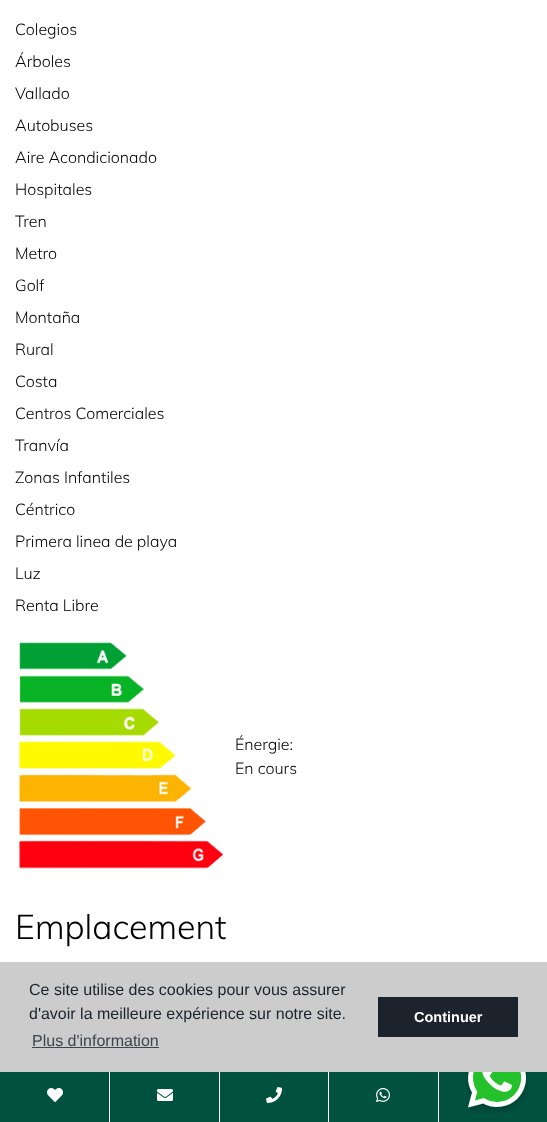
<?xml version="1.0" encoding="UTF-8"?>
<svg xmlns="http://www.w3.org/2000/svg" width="547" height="1122">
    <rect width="100%" height="100%" fill="#FFFFFF"/>
    <text x="15" y="35" font-family="Muli" font-size="16" font-weight="300" fill="#000000">Colegios</text>
    <text x="15" y="67" font-family="Muli" font-size="16" font-weight="300" fill="#000000">Árboles</text>
    <text x="15" y="99" font-family="Muli" font-size="16" font-weight="300" fill="#000000">Vallado</text>
    <text x="15" y="131" font-family="Muli" font-size="16" font-weight="300" fill="#000000">Autobuses</text>
    <text x="15" y="163" font-family="Muli" font-size="16" font-weight="300" fill="#000000">Aire Acondicionado</text>
    <text x="15" y="195" font-family="Muli" font-size="16" font-weight="300" fill="#000000">Hospitales</text>
    <text x="15" y="227" font-family="Muli" font-size="16" font-weight="300" fill="#000000">Tren</text>
    <text x="15" y="259" font-family="Muli" font-size="16" font-weight="300" fill="#000000">Metro</text>
    <text x="15" y="291" font-family="Muli" font-size="16" font-weight="300" fill="#000000">Golf</text>
    <text x="15" y="323" font-family="Muli" font-size="16" font-weight="300" fill="#000000">Montaña</text>
    <text x="15" y="355" font-family="Muli" font-size="16" font-weight="300" fill="#000000">Rural</text>
    <text x="15" y="387" font-family="Muli" font-size="16" font-weight="300" fill="#000000">Costa</text>
    <text x="15" y="419" font-family="Muli" font-size="16" font-weight="300" fill="#000000">Centros Comerciales</text>
    <text x="15" y="451" font-family="Muli" font-size="16" font-weight="300" fill="#000000">Tranvía</text>
    <text x="15" y="483" font-family="Muli" font-size="16" font-weight="300" fill="#000000">Zonas Infantiles</text>
    <text x="15" y="515" font-family="Muli" font-size="16" font-weight="300" fill="#000000">Céntrico</text>
    <text x="15" y="547" font-family="Muli" font-size="16" font-weight="300" fill="#000000">Primera linea de playa</text>
    <text x="15" y="579" font-family="Muli" font-size="16" font-weight="300" fill="#000000">Luz</text>
    <text x="15" y="611" font-family="Muli" font-size="16" font-weight="300" fill="#000000">Renta Libre</text>
    <image x="19" y="642" width="205" height="227" href="img_01.png"/>
    <text font-family="Muli" font-size="16" font-weight="300" fill="#000000">
        <tspan x="235" y="750">Énergie:</tspan>
        <tspan x="235" y="774">En cours</tspan>
    </text>
    <text x="15" y="939" font-family="Muli" font-size="34" font-weight="300" fill="#000000">Emplacement</text>
    <rect x="0" y="1072" width="547" height="50" fill="#00523F"/>
    <rect x="109" y="1068" width="1" height="54" fill="#FFFFFF"/>
    <rect x="219" y="1068" width="1" height="54" fill="#FFFFFF"/>
    <rect x="328" y="1068" width="1" height="54" fill="#FFFFFF"/>
    <rect x="438" y="1068" width="1" height="54" fill="#FFFFFF"/>
    <rect x="0" y="962" width="547" height="110" fill="#CCCCCC"/>
    <text font-family="Liberation Sans" font-size="16" fill="#1C232C">
        <tspan x="29" y="995">Ce site utilise des cookies pour vous assurer</tspan>
        <tspan x="29" y="1019">d'avoir la meilleure expérience sur notre site.</tspan>
    </text>
    <text x="32" y="1046" font-family="Liberation Sans" font-size="16" fill="#3F454C">Plus d'information</text>
    <rect x="32" y="1047" width="127" height="1" fill="#3F454C"/>
    <rect x="378" y="997" width="140" height="40" fill="#1C232C"/>
    <text x="414" y="1022" font-family="Liberation Sans" font-size="14.5" font-weight="700" fill="#FFFFFF">Continuer</text>
    <image x="47" y="1088" width="16" height="14" href="img_02.png"/>
    <image x="157" y="1089" width="16" height="12" href="img_03.png"/>
    <image x="266" y="1087" width="16" height="16" href="img_04.png"/>
    <image x="376" y="1088" width="14" height="14" href="img_05.png"/>
    <image x="466" y="1072" width="62" height="41" href="img_06.png"/>
</svg>
